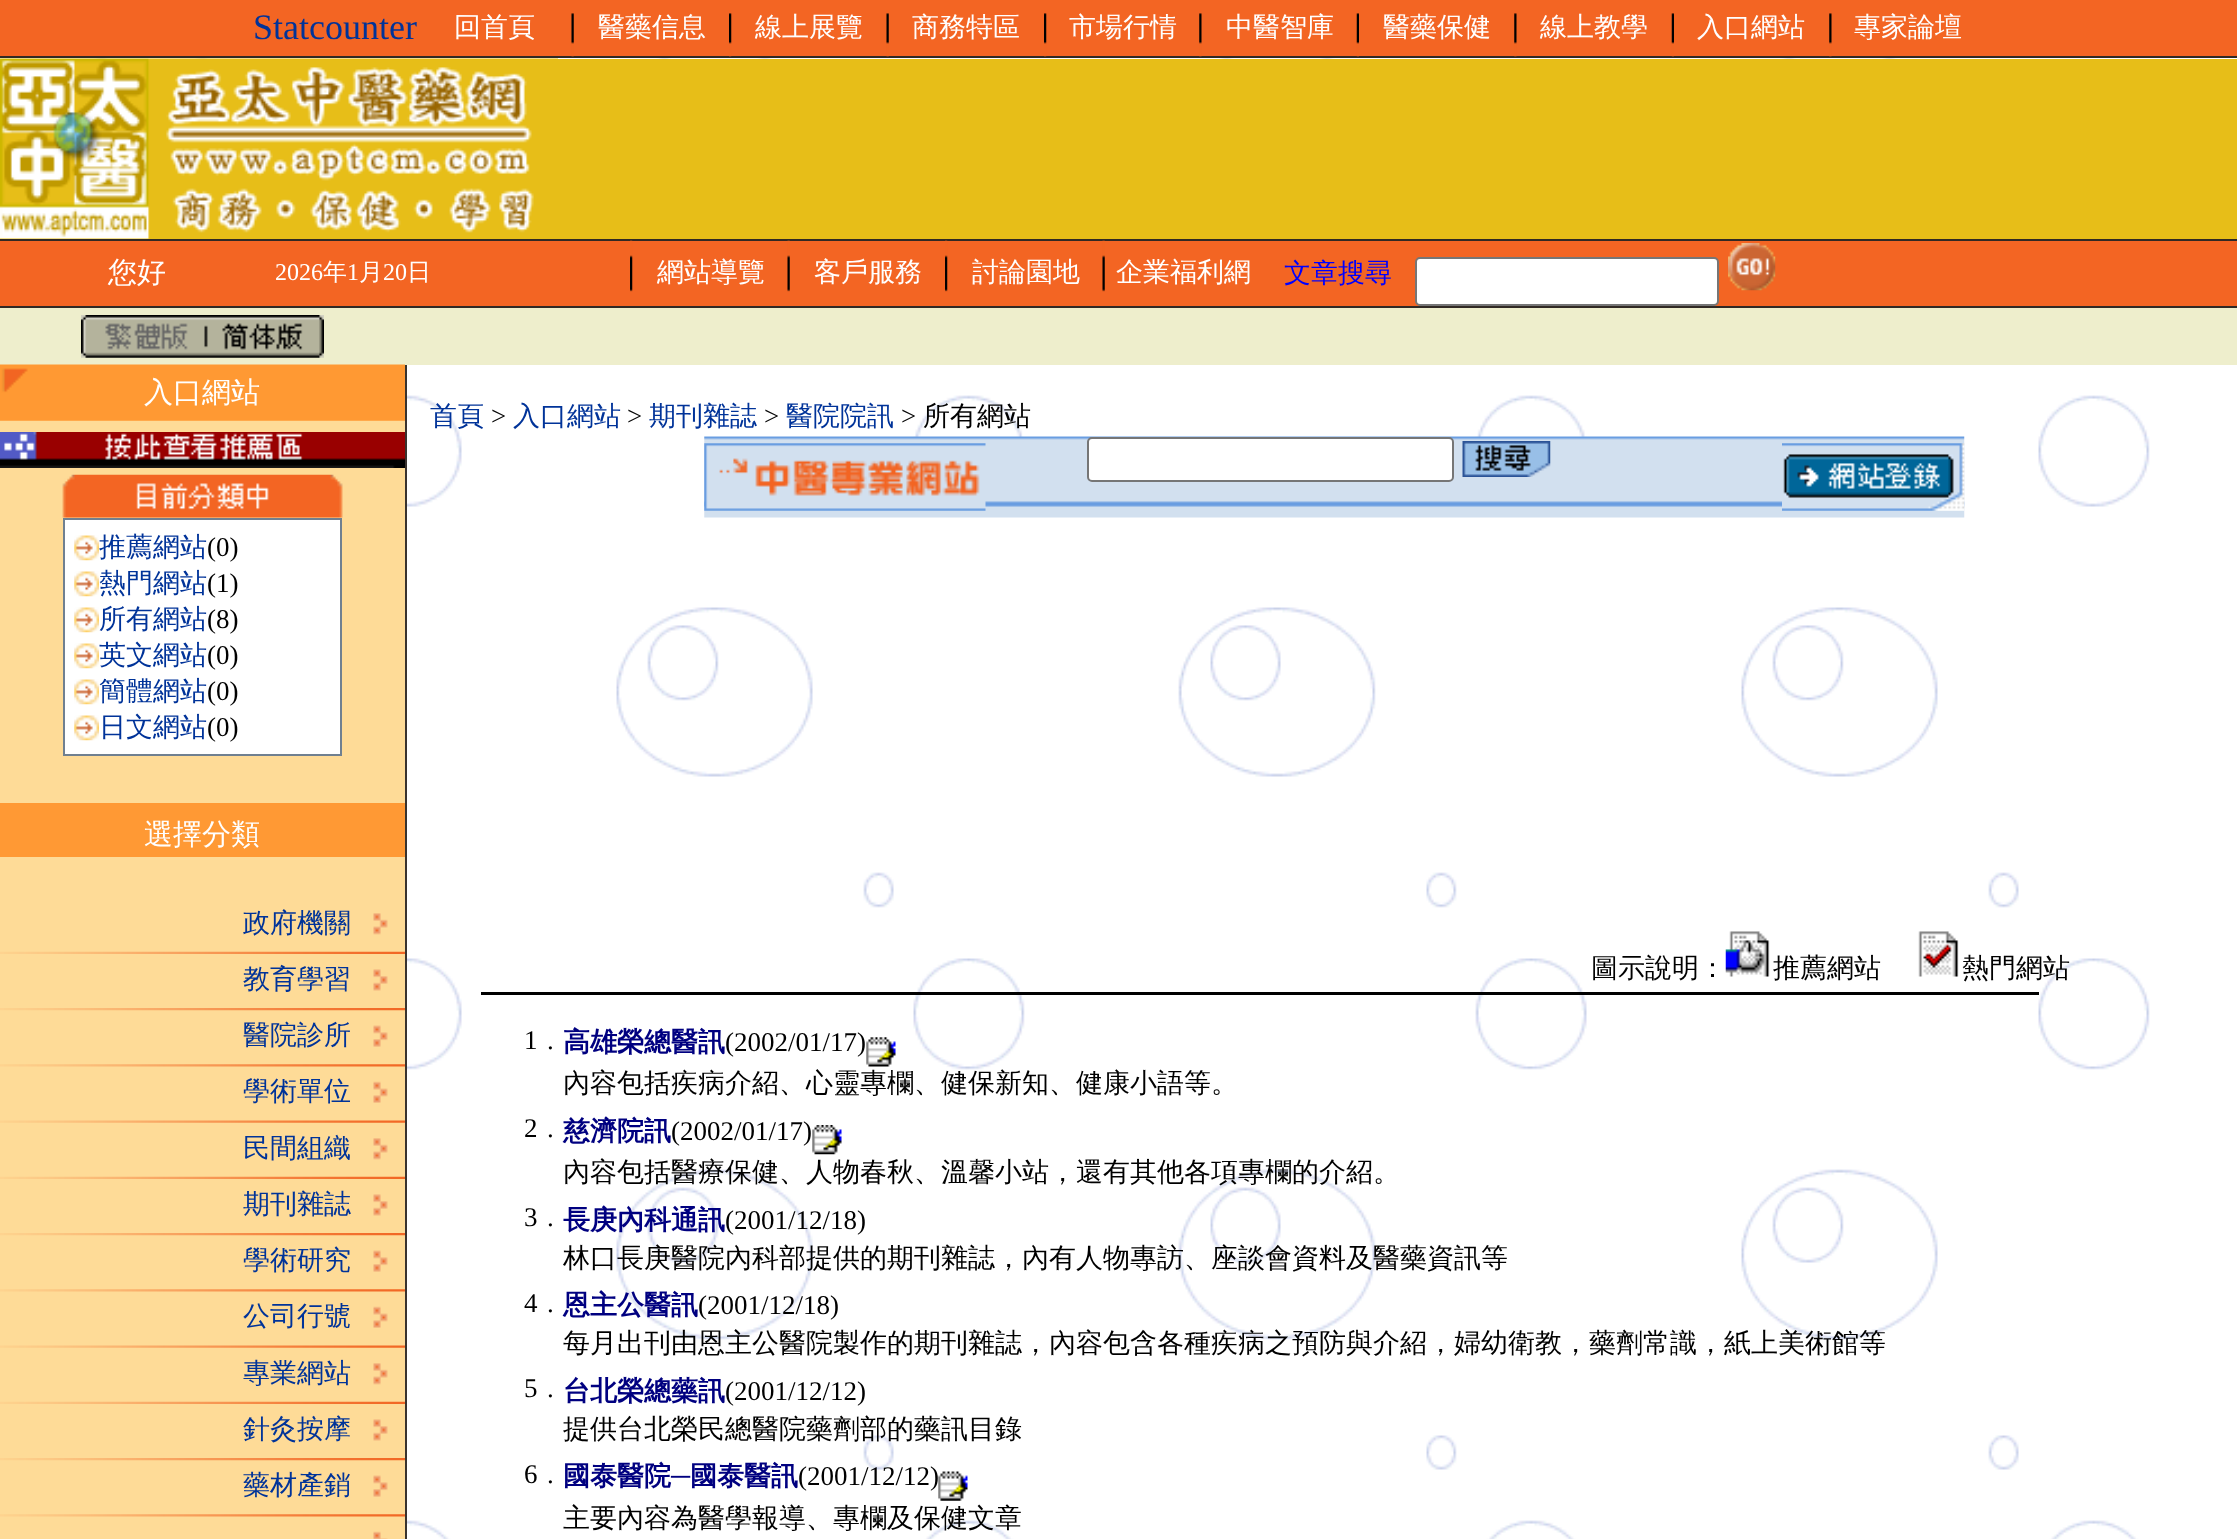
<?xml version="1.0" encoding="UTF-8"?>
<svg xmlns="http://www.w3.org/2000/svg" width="2237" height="1539">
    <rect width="100%" height="100%" fill="#FFFFFF"/>
    <image x="53" y="58" width="2097" height="1481" href="img_01.png"/>
    <rect x="0" y="0" width="2237" height="56" fill="#F36523"/>
    <text x="253" y="39" font-family="Liberation Serif" font-size="36" fill="#003399">Statcounter</text>
    <text x="454" y="36" font-family="WenQuanYi Zen Hei" font-size="27" font-weight="500" fill="#FFFFFF">回首頁</text>
    <rect x="0" y="56" width="2237" height="2" fill="#302924"/>
    <image x="571" y="13" width="3" height="44" href="img_02.png"/>
    <text x="598" y="36" font-family="WenQuanYi Zen Hei" font-size="27" font-weight="500" fill="#FFFFFF">醫藥信息</text>
    <image x="729" y="13" width="3" height="44" href="img_03.png"/>
    <text x="755" y="36" font-family="WenQuanYi Zen Hei" font-size="27" font-weight="500" fill="#FFFFFF">線上展覽</text>
    <image x="886" y="13" width="3" height="44" href="img_02.png"/>
    <text x="912" y="36" font-family="WenQuanYi Zen Hei" font-size="27" font-weight="500" fill="#FFFFFF">商務特區</text>
    <image x="1044" y="13" width="3" height="44" href="img_03.png"/>
    <text x="1069" y="36" font-family="WenQuanYi Zen Hei" font-size="27" font-weight="500" fill="#FFFFFF">市場行情</text>
    <image x="1199" y="13" width="3" height="44" href="img_04.png"/>
    <text x="1226" y="36" font-family="WenQuanYi Zen Hei" font-size="27" font-weight="500" fill="#FFFFFF">中醫智庫</text>
    <image x="1356" y="13" width="3" height="44" href="img_05.png"/>
    <text x="1383" y="36" font-family="WenQuanYi Zen Hei" font-size="27" font-weight="500" fill="#FFFFFF">醫藥保健</text>
    <image x="1514" y="13" width="3" height="44" href="img_04.png"/>
    <text x="1540" y="36" font-family="WenQuanYi Zen Hei" font-size="27" font-weight="500" fill="#FFFFFF">線上教學</text>
    <image x="1671" y="13" width="3" height="44" href="img_05.png"/>
    <text x="1697" y="36" font-family="WenQuanYi Zen Hei" font-size="27" font-weight="500" fill="#FFFFFF">入口網站</text>
    <image x="1829" y="13" width="3" height="44" href="img_04.png"/>
    <text x="1854" y="36" font-family="WenQuanYi Zen Hei" font-size="27" font-weight="500" fill="#FFFFFF">專家論壇</text>
    <rect x="0" y="59" width="2237" height="180" fill="#E7BE18"/>
    <image x="0" y="58" width="558" height="181" href="img_06.png"/>
    <rect x="0" y="239" width="2237" height="2" fill="#302924"/>
    <rect x="0" y="241" width="2237" height="65" fill="#F36523"/>
    <text x="108" y="282" font-family="WenQuanYi Zen Hei" font-size="29" font-weight="500" fill="#FFFFFF">您好</text>
    <text x="275" y="280" font-family="Liberation Serif" font-size="24" fill="#FFFFFF">2026</text>
    <text x="323" y="280" font-family="WenQuanYi Zen Hei" font-size="24" font-weight="500" fill="#FFFFFF">年</text>
    <text x="347" y="280" font-family="Liberation Serif" font-size="24" fill="#FFFFFF">1</text>
    <text x="359" y="280" font-family="WenQuanYi Zen Hei" font-size="24" font-weight="500" fill="#FFFFFF">月</text>
    <text x="383" y="280" font-family="Liberation Serif" font-size="24" fill="#FFFFFF">20</text>
    <text x="407" y="280" font-family="WenQuanYi Zen Hei" font-size="24" font-weight="500" fill="#FFFFFF">日</text>
    <image x="630" y="240" width="3" height="52" href="img_07.png"/>
    <text x="657" y="281" font-family="WenQuanYi Zen Hei" font-size="27" font-weight="500" fill="#FFFFFF">網站導覽</text>
    <image x="787" y="240" width="3" height="52" href="img_08.png"/>
    <text x="814" y="281" font-family="WenQuanYi Zen Hei" font-size="27" font-weight="500" fill="#FFFFFF">客戶服務</text>
    <image x="945" y="240" width="3" height="52" href="img_07.png"/>
    <text x="972" y="281" font-family="WenQuanYi Zen Hei" font-size="27" font-weight="500" fill="#FFFFFF">討論園地</text>
    <image x="1102" y="240" width="3" height="52" href="img_08.png"/>
    <text x="1116" y="281" font-family="WenQuanYi Zen Hei" font-size="27" font-weight="500" fill="#FFFFFF">企業福利網</text>
    <text x="1284" y="282" font-family="WenQuanYi Zen Hei" font-size="27" font-weight="500" fill="#0000FF">文章搜尋</text>
    <rect x="1416" y="258" width="302" height="47" rx="4" fill="#FFFFFF" stroke="#767676" stroke-width="2"/>
    <image x="1728" y="243" width="48" height="48" href="img_09.png"/>
    <rect x="0" y="306" width="2237" height="2" fill="#302924"/>
    <rect x="0" y="308" width="2237" height="57" fill="#EEEECC"/>
    <image x="81" y="315" width="243" height="43" href="img_10.png"/>
    <rect x="0" y="420" width="405" height="1119" fill="#FEDB97"/>
    <image x="0" y="364" width="405" height="57" href="img_11.png"/>
    <text x="144" y="402" font-family="WenQuanYi Zen Hei" font-size="29" font-weight="500" fill="#FFFFFF">入口網站</text>
    <image x="0" y="432" width="405" height="36" href="img_12.png"/>
    <image x="62" y="474" width="281" height="44" href="img_13.png"/>
    <rect x="63" y="518" width="279" height="238" fill="#708090"/>
    <rect x="65" y="520" width="275" height="234" fill="#FFFFFF"/>
    <image x="74" y="535" width="25" height="26" href="img_14.png"/>
    <text x="99" y="556" font-family="WenQuanYi Zen Hei" font-size="27" font-weight="500" fill="#003399">推薦網站</text>
    <text x="207" y="556" font-family="Liberation Serif" font-size="27" fill="#000000">(0)</text>
    <image x="74" y="571" width="25" height="26" href="img_15.png"/>
    <text x="99" y="592" font-family="WenQuanYi Zen Hei" font-size="27" font-weight="500" fill="#003399">熱門網站</text>
    <text x="207" y="592" font-family="Liberation Serif" font-size="27" fill="#000000">(1)</text>
    <image x="74" y="607" width="25" height="26" href="img_14.png"/>
    <text x="99" y="628" font-family="WenQuanYi Zen Hei" font-size="27" font-weight="500" fill="#003399">所有網站</text>
    <text x="207" y="628" font-family="Liberation Serif" font-size="27" fill="#000000">(8)</text>
    <image x="74" y="643" width="25" height="26" href="img_14.png"/>
    <text x="99" y="664" font-family="WenQuanYi Zen Hei" font-size="27" font-weight="500" fill="#003399">英文網站</text>
    <text x="207" y="664" font-family="Liberation Serif" font-size="27" fill="#000000">(0)</text>
    <image x="74" y="679" width="25" height="26" href="img_14.png"/>
    <text x="99" y="700" font-family="WenQuanYi Zen Hei" font-size="27" font-weight="500" fill="#003399">簡體網站</text>
    <text x="207" y="700" font-family="Liberation Serif" font-size="27" fill="#000000">(0)</text>
    <image x="74" y="715" width="25" height="26" href="img_14.png"/>
    <text x="99" y="736" font-family="WenQuanYi Zen Hei" font-size="27" font-weight="500" fill="#003399">日文網站</text>
    <text x="207" y="736" font-family="Liberation Serif" font-size="27" fill="#000000">(0)</text>
    <rect x="0" y="803" width="405" height="54" fill="#FF9934"/>
    <text x="144" y="844" font-family="WenQuanYi Zen Hei" font-size="29" font-weight="500" fill="#FFFFFF">選擇分類</text>
    <text x="243" y="932" font-family="WenQuanYi Zen Hei" font-size="27" font-weight="500" fill="#003399">政府機關</text>
    <image x="373" y="913" width="15" height="22" href="img_16.png"/>
    <image x="0" y="951" width="405" height="3" href="img_17.png"/>
    <text x="243" y="988" font-family="WenQuanYi Zen Hei" font-size="27" font-weight="500" fill="#003399">教育學習</text>
    <image x="373" y="969" width="15" height="22" href="img_18.png"/>
    <image x="0" y="1008" width="405" height="3" href="img_19.png"/>
    <text x="243" y="1044" font-family="WenQuanYi Zen Hei" font-size="27" font-weight="500" fill="#003399">醫院診所</text>
    <image x="373" y="1025" width="15" height="22" href="img_20.png"/>
    <image x="0" y="1064" width="405" height="3" href="img_21.png"/>
    <text x="243" y="1100" font-family="WenQuanYi Zen Hei" font-size="27" font-weight="500" fill="#003399">學術單位</text>
    <image x="373" y="1081" width="15" height="22" href="img_22.png"/>
    <image x="0" y="1120" width="405" height="3" href="img_23.png"/>
    <text x="243" y="1157" font-family="WenQuanYi Zen Hei" font-size="27" font-weight="500" fill="#003399">民間組織</text>
    <image x="373" y="1138" width="15" height="22" href="img_16.png"/>
    <image x="0" y="1176" width="405" height="3" href="img_17.png"/>
    <text x="243" y="1213" font-family="WenQuanYi Zen Hei" font-size="27" font-weight="500" fill="#003399">期刊雜誌</text>
    <image x="373" y="1194" width="15" height="22" href="img_18.png"/>
    <image x="0" y="1233" width="405" height="3" href="img_19.png"/>
    <text x="243" y="1269" font-family="WenQuanYi Zen Hei" font-size="27" font-weight="500" fill="#003399">學術研究</text>
    <image x="373" y="1250" width="15" height="22" href="img_20.png"/>
    <image x="0" y="1289" width="405" height="3" href="img_21.png"/>
    <text x="243" y="1325" font-family="WenQuanYi Zen Hei" font-size="27" font-weight="500" fill="#003399">公司行號</text>
    <image x="373" y="1306" width="15" height="22" href="img_22.png"/>
    <image x="0" y="1345" width="405" height="3" href="img_23.png"/>
    <text x="243" y="1382" font-family="WenQuanYi Zen Hei" font-size="27" font-weight="500" fill="#003399">專業網站</text>
    <image x="373" y="1363" width="15" height="22" href="img_16.png"/>
    <image x="0" y="1401" width="405" height="3" href="img_17.png"/>
    <text x="243" y="1438" font-family="WenQuanYi Zen Hei" font-size="27" font-weight="500" fill="#003399">針灸按摩</text>
    <image x="373" y="1419" width="15" height="22" href="img_18.png"/>
    <image x="0" y="1458" width="405" height="3" href="img_19.png"/>
    <text x="243" y="1494" font-family="WenQuanYi Zen Hei" font-size="27" font-weight="500" fill="#003399">藥材產銷</text>
    <image x="373" y="1475" width="15" height="22" href="img_20.png"/>
    <image x="0" y="1514" width="405" height="3" href="img_21.png"/>
    <image x="373" y="1531" width="15" height="8" href="img_24.png"/>
    <rect x="405" y="365" width="2" height="1174" fill="#39332E"/>
    <text x="430" y="425" font-family="WenQuanYi Zen Hei" font-size="27" font-weight="500" fill="#003399">首頁</text>
    <text x="491" y="425" font-family="Liberation Serif" font-size="27" fill="#000000">&gt;</text>
    <text x="513" y="425" font-family="WenQuanYi Zen Hei" font-size="27" font-weight="500" fill="#003399">入口網站</text>
    <text x="627" y="425" font-family="Liberation Serif" font-size="27" fill="#000000">&gt;</text>
    <text x="649" y="425" font-family="WenQuanYi Zen Hei" font-size="27" font-weight="500" fill="#003399">期刊雜誌</text>
    <text x="764" y="425" font-family="Liberation Serif" font-size="27" fill="#000000">&gt;</text>
    <text x="786" y="425" font-family="WenQuanYi Zen Hei" font-size="27" font-weight="500" fill="#003399">醫院院訊</text>
    <text x="901" y="425" font-family="Liberation Serif" font-size="27" fill="#000000">&gt;</text>
    <text x="923" y="425" font-family="WenQuanYi Zen Hei" font-size="27" font-weight="500" fill="#000000">所有網站</text>
    <image x="704" y="436" width="1261" height="82" href="img_25.png"/>
    <image x="704" y="443" width="282" height="68" href="img_26.png"/>
    <rect x="1088" y="438" width="365" height="43" rx="4" fill="#FFFFFF" stroke="#767676" stroke-width="2"/>
    <image x="1462" y="441" width="89" height="36" href="img_27.png"/>
    <image x="1782" y="443" width="183" height="68" href="img_28.png"/>
    <text x="1591" y="977" font-family="WenQuanYi Zen Hei" font-size="27" font-weight="500" fill="#000000">圖示說明：</text>
    <image x="1725" y="931" width="45" height="46" href="img_29.png"/>
    <text x="1773" y="977" font-family="WenQuanYi Zen Hei" font-size="27" font-weight="500" fill="#000000">推薦網站</text>
    <image x="1918" y="931" width="41" height="46" href="img_30.png"/>
    <text x="1962" y="977" font-family="WenQuanYi Zen Hei" font-size="27" font-weight="500" fill="#000000">熱門網站</text>
    <rect x="481" y="992" width="1558" height="3" fill="#000000"/>
    <text x="524" y="1049" font-family="Liberation Serif" font-size="27" fill="#000000">1</text>
    <text x="547" y="1049" font-family="Liberation Serif" font-size="27" fill="#000000">.</text>
    <text x="563" y="1051" font-family="WenQuanYi Zen Hei" font-size="27" font-weight="700" fill="#000080">高雄榮總醫訊</text>
    <text x="725" y="1051" font-family="Liberation Serif" font-size="27" fill="#000000">(2002/01/17)</text>
    <image x="866" y="1037" width="30" height="30" href="img_31.png"/>
    <text x="563" y="1092" font-family="WenQuanYi Zen Hei" font-size="27" font-weight="500" fill="#000000">內容包括疾病介紹、心靈專欄、健保新知、健康小語等。</text>
    <text x="524" y="1137" font-family="Liberation Serif" font-size="27" fill="#000000">2</text>
    <text x="547" y="1137" font-family="Liberation Serif" font-size="27" fill="#000000">.</text>
    <text x="563" y="1140" font-family="WenQuanYi Zen Hei" font-size="27" font-weight="700" fill="#000080">慈濟院訊</text>
    <text x="671" y="1140" font-family="Liberation Serif" font-size="27" fill="#000000">(2002/01/17)</text>
    <image x="812" y="1125" width="30" height="30" href="img_32.png"/>
    <text x="563" y="1181" font-family="WenQuanYi Zen Hei" font-size="27" font-weight="500" fill="#000000">內容包括醫療保健、人物春秋、溫馨小站，還有其他各項專欄的介紹。</text>
    <text x="524" y="1226" font-family="Liberation Serif" font-size="27" fill="#000000">3</text>
    <text x="547" y="1226" font-family="Liberation Serif" font-size="27" fill="#000000">.</text>
    <text x="563" y="1229" font-family="WenQuanYi Zen Hei" font-size="27" font-weight="700" fill="#000080">長庚內科通訊</text>
    <text x="725" y="1229" font-family="Liberation Serif" font-size="27" fill="#000000">(2001/12/18)</text>
    <text x="563" y="1267" font-family="WenQuanYi Zen Hei" font-size="27" font-weight="500" fill="#000000">林口長庚醫院內科部提供的期刊雜誌，內有人物專訪、座談會資料及醫藥資訊等</text>
    <text x="524" y="1312" font-family="Liberation Serif" font-size="27" fill="#000000">4</text>
    <text x="547" y="1312" font-family="Liberation Serif" font-size="27" fill="#000000">.</text>
    <text x="563" y="1314" font-family="WenQuanYi Zen Hei" font-size="27" font-weight="700" fill="#000080">恩主公醫訊</text>
    <text x="698" y="1314" font-family="Liberation Serif" font-size="27" fill="#000000">(2001/12/18)</text>
    <text x="563" y="1352" font-family="WenQuanYi Zen Hei" font-size="27" font-weight="500" fill="#000000">每月出刊由恩主公醫院製作的期刊雜誌，內容包含各種疾病之預防與介紹，婦幼衛教，藥劑常識，紙上美術館等</text>
    <text x="524" y="1397" font-family="Liberation Serif" font-size="27" fill="#000000">5</text>
    <text x="547" y="1397" font-family="Liberation Serif" font-size="27" fill="#000000">.</text>
    <text x="563" y="1400" font-family="WenQuanYi Zen Hei" font-size="27" font-weight="700" fill="#000080">台北榮總藥訊</text>
    <text x="725" y="1400" font-family="Liberation Serif" font-size="27" fill="#000000">(2001/12/12)</text>
    <text x="563" y="1438" font-family="WenQuanYi Zen Hei" font-size="27" font-weight="500" fill="#000000">提供台北榮民總醫院藥劑部的藥訊目錄</text>
    <text x="524" y="1483" font-family="Liberation Serif" font-size="27" fill="#000000">6</text>
    <text x="547" y="1483" font-family="Liberation Serif" font-size="27" fill="#000000">.</text>
    <text x="563" y="1485" font-family="WenQuanYi Zen Hei" font-size="27" font-weight="700" fill="#000080">國泰醫院</text>
    <text x="671" y="1485" font-family="Liberation Serif" font-size="27" font-weight="700" fill="#000080">─</text>
    <text x="690" y="1485" font-family="WenQuanYi Zen Hei" font-size="27" font-weight="700" fill="#000080">國泰醫訊</text>
    <text x="798" y="1485" font-family="Liberation Serif" font-size="27" fill="#000000">(2001/12/12)</text>
    <image x="938" y="1471" width="30" height="30" href="img_33.png"/>
    <text x="563" y="1527" font-family="WenQuanYi Zen Hei" font-size="27" font-weight="500" fill="#000000">主要內容為醫學報導、專欄及保健文章</text>
</svg>
